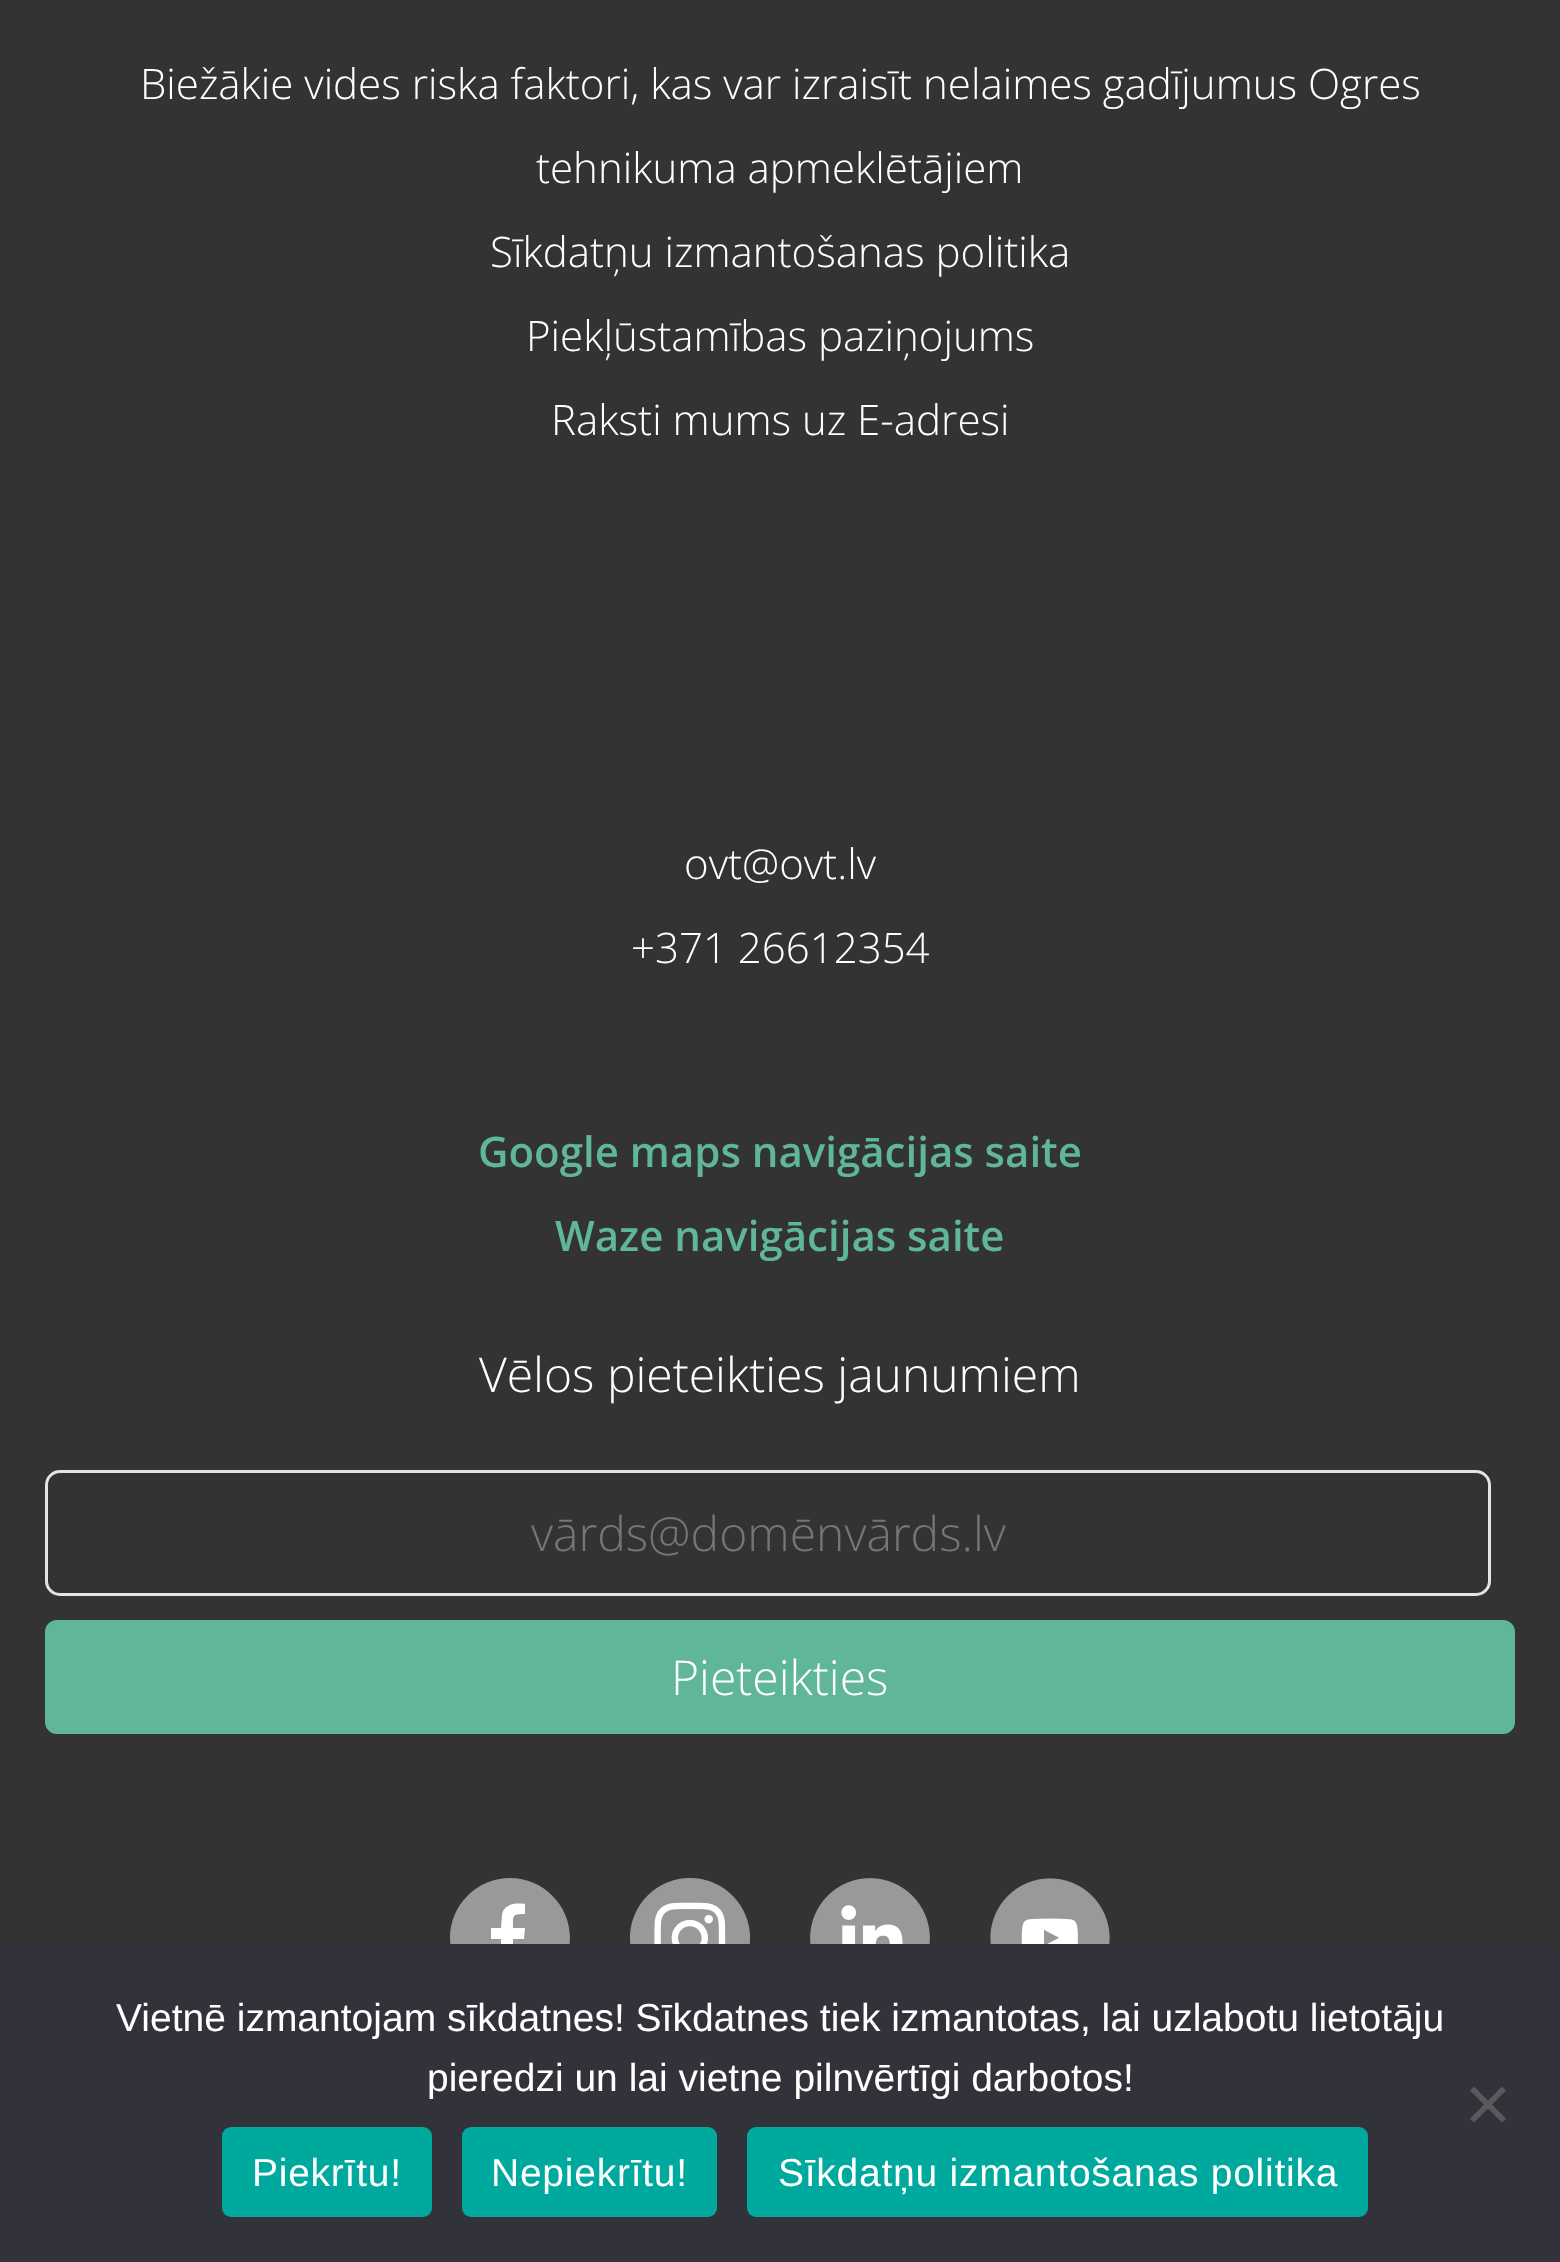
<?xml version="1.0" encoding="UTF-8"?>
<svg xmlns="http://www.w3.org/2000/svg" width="1560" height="2262">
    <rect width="100%" height="100%" fill="#333333"/>
    <text x="140" y="99" font-family="Open Sans" font-size="42" font-weight="300" fill="#FFFFFF">Biežākie vides riska faktori, kas var izraisīt nelaimes gadījumus Ogres</text>
    <text x="536" y="183" font-family="Open Sans" font-size="42" font-weight="300" fill="#FFFFFF">tehnikuma apmeklētājiem</text>
    <text x="490" y="267" font-family="Open Sans" font-size="42" font-weight="300" fill="#FFFFFF">Sīkdatņu izmantošanas politika</text>
    <text x="526" y="351" font-family="Open Sans" font-size="42" font-weight="300" fill="#FFFFFF">Piekļūstamības paziņojums</text>
    <text x="551" y="435" font-family="Open Sans" font-size="42" font-weight="300" fill="#FFFFFF">Raksti mums uz E-adresi</text>
    <text x="684" y="879" font-family="Open Sans" font-size="42" font-weight="300" fill="#FFFFFF">ovt@ovt.lv</text>
    <text x="631" y="963" font-family="Open Sans" font-size="42" font-weight="300" fill="#FFFFFF">+371 26612354</text>
    <text x="478" y="1167" font-family="Open Sans" font-size="42" font-weight="600" fill="#60B798">Google maps navigācijas saite</text>
    <text x="555" y="1251" font-family="Open Sans" font-size="42" font-weight="600" fill="#60B798">Waze navigācijas saite</text>
    <text x="479" y="1392" font-family="Open Sans" font-size="48" font-weight="300" fill="#FFFFFF">Vēlos pieteikties jaunumiem</text>
    <rect x="46.5" y="1471.5" width="1443" height="123" rx="13.5" fill="none" stroke="#E4E4E4" stroke-width="3"/>
    <text x="531" y="1551" font-family="Open Sans" font-size="48" font-weight="300" fill="#757575">vārds@domēnvārds.lv</text>
    <rect x="46.5" y="1621.5" width="1467" height="111" rx="10.5" fill="#60B798" stroke="#60B798" stroke-width="3"/>
    <text x="671" y="1695" font-family="Open Sans" font-size="48" font-weight="300" fill="#FFFFFF">Pieteikties</text>
    <circle cx="510" cy="1938" r="54" fill="#FFFFFF"/>
    <path d="M 510 1878 C 477 1878 450 1905 450 1938 C 450 1971 477 1998 510 1998 C 543 1998 570 1971 570 1938 C 570 1905 543 1878 510 1878 Z M 525 1914 C 512 1914 513 1915 513 1928 H 525 L 524 1939 H 513 V 1969 H 501 V 1939 H 491 V 1928 H 501 L 502 1915 C 504 1903 516 1903 525 1904 Z" fill="#999999"/>
    <image x="630" y="1878" width="120" height="66" href="img_01.png"/>
    <image x="810" y="1878" width="120" height="66" href="img_02.png"/>
    <image x="990" y="1878" width="120" height="66" href="img_03.png"/>
    <rect x="0" y="1944" width="1560" height="318" fill="#32323A"/>
    <text x="116" y="2031" font-family="Liberation Sans" font-size="39" fill="#FFFFFF">Vietnē izmantojam sīkdatnes! Sīkdatnes tiek izmantotas, lai uzlabotu lietotāju</text>
    <text x="427" y="2091" font-family="Liberation Sans" font-size="39" fill="#FFFFFF">pieredzi un lai vietne pilnvērtīgi darbotos!</text>
    <path d="M 1502 2086.5 L 1506 2090.5 L 1474 2122.5 L 1470 2118.5 Z" fill="#59595D"/>
    <path d="M 1470 2090.5 L 1474 2086.5 L 1506 2118.5 L 1502 2122.5 Z" fill="#59595D"/>
    <rect x="222" y="2127" width="210" height="90" rx="9" fill="#00A99D"/>
    <text x="252" y="2186" font-family="Liberation Sans" font-size="39" letter-spacing="0.75" fill="#FFFFFF">Piekrītu!</text>
    <rect x="462" y="2127" width="255" height="90" rx="9" fill="#00A99D"/>
    <text x="491" y="2186" font-family="Liberation Sans" font-size="39" letter-spacing="0.75" fill="#FFFFFF">Nepiekrītu!</text>
    <rect x="747" y="2127" width="621" height="90" rx="9" fill="#00A99D"/>
    <text x="778" y="2186" font-family="Liberation Sans" font-size="39" letter-spacing="0.75" fill="#FFFFFF">Sīkdatņu izmantošanas politika</text>
</svg>
